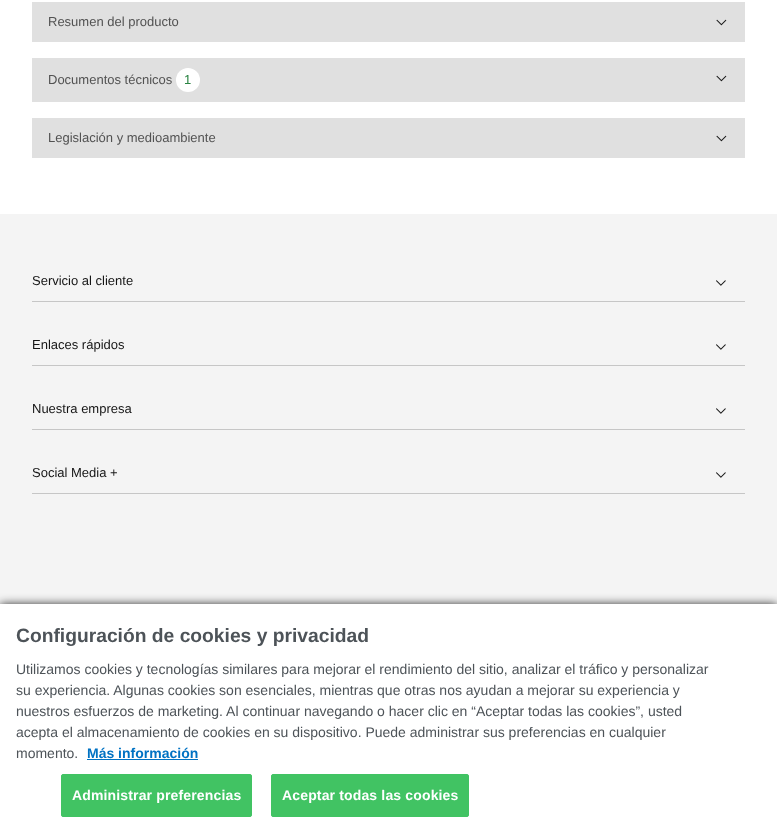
<?xml version="1.0" encoding="UTF-8"?>
<svg xmlns="http://www.w3.org/2000/svg" width="777" height="833">
    <defs>
        <filter id="blur1" x="-50%" y="-200%" width="200%" height="500%"><feGaussianBlur stdDeviation="5"/></filter>
    </defs>
    <rect width="100%" height="100%" fill="#FFFFFF"/>
    <rect x="32" y="2" width="713" height="40" fill="#E0E0E0"/>
    <text x="48" y="26" font-family="Liberation Sans" font-size="13" fill="#525252">Resumen del producto</text>
    <image x="716" y="19" width="11" height="7" href="img_01.png"/>
    <rect x="32" y="58" width="713" height="44" fill="#E0E0E0"/>
    <text x="48" y="84" font-family="Liberation Sans" font-size="13" fill="#525252">Documentos técnicos</text>
    <circle cx="188" cy="80" r="12" fill="#FFFFFF"/>
    <text x="184" y="84" font-family="Liberation Sans" font-size="13" fill="#2A8442">1</text>
    <image x="716" y="75" width="11" height="7" href="img_01.png"/>
    <rect x="32" y="118" width="713" height="40" fill="#E0E0E0"/>
    <text x="48" y="142" font-family="Liberation Sans" font-size="13" fill="#525252">Legislación y medioambiente</text>
    <image x="716" y="135" width="11" height="7" href="img_01.png"/>
    <rect x="0" y="214" width="777" height="390" fill="#F4F4F4"/>
    <rect x="32" y="301" width="713" height="1" fill="#C6C6C6"/>
    <text x="32" y="285" font-family="Liberation Sans" font-size="13" fill="#161616">Servicio al cliente</text>
    <image x="716" y="280" width="10" height="6" href="img_02.png"/>
    <rect x="32" y="365" width="713" height="1" fill="#C6C6C6"/>
    <text x="32" y="349" font-family="Liberation Sans" font-size="13" fill="#161616">Enlaces rápidos</text>
    <image x="716" y="344" width="10" height="6" href="img_02.png"/>
    <rect x="32" y="429" width="713" height="1" fill="#C6C6C6"/>
    <text x="32" y="413" font-family="Liberation Sans" font-size="13" fill="#161616">Nuestra empresa</text>
    <image x="716" y="408" width="10" height="6" href="img_02.png"/>
    <rect x="32" y="493" width="713" height="1" fill="#C6C6C6"/>
    <text x="32" y="477" font-family="Liberation Sans" font-size="13" fill="#161616">Social Media +</text>
    <image x="716" y="472" width="10" height="6" href="img_02.png"/>
    <rect x="0" y="604" width="777" height="229" fill="#000000" fill-opacity="0.8" filter="url(#blur1)"/>
    <rect x="0" y="604" width="777" height="229" fill="#FFFFFF"/>
    <text x="16" y="642" font-family="Liberation Sans" font-size="19.25" font-weight="700" fill="#4D5358">Configuración de cookies y privacidad</text>
    <text font-family="Liberation Sans" font-size="14" fill="#4D5358">
        <tspan x="16" y="674">Utilizamos cookies y tecnologías similares para mejorar el rendimiento del sitio, analizar el tráfico y personalizar</tspan>
        <tspan x="16" y="695">su experiencia. Algunas cookies son esenciales, mientras que otras nos ayudan a mejorar su experiencia y</tspan>
        <tspan x="16" y="716">nuestros esfuerzos de marketing. Al continuar navegando o hacer clic en “Aceptar todas las cookies”, usted</tspan>
        <tspan x="16" y="737">acepta el almacenamiento de cookies en su dispositivo. Puede administrar sus preferencias en cualquier</tspan>
        <tspan x="16" y="758">momento.</tspan>
    </text>
    <text x="87" y="758" font-family="Liberation Sans" font-size="14" font-weight="700" fill="#0072C3">Más información</text>
    <rect x="87" y="759" width="111" height="1" fill="#0072C3"/>
    <rect x="61.5" y="774.5" width="190" height="42" rx="1.5" fill="#41C363" stroke="#41C363"/>
    <text x="72" y="800" font-family="Liberation Sans" font-size="14" font-weight="700" letter-spacing="0.15" fill="#FFFFFF">Administrar preferencias</text>
    <rect x="271.5" y="774.5" width="197" height="42" rx="1.5" fill="#41C363" stroke="#41C363"/>
    <text x="282" y="800" font-family="Liberation Sans" font-size="14" font-weight="700" letter-spacing="0.15" fill="#FFFFFF">Aceptar todas las cookies</text>
</svg>
